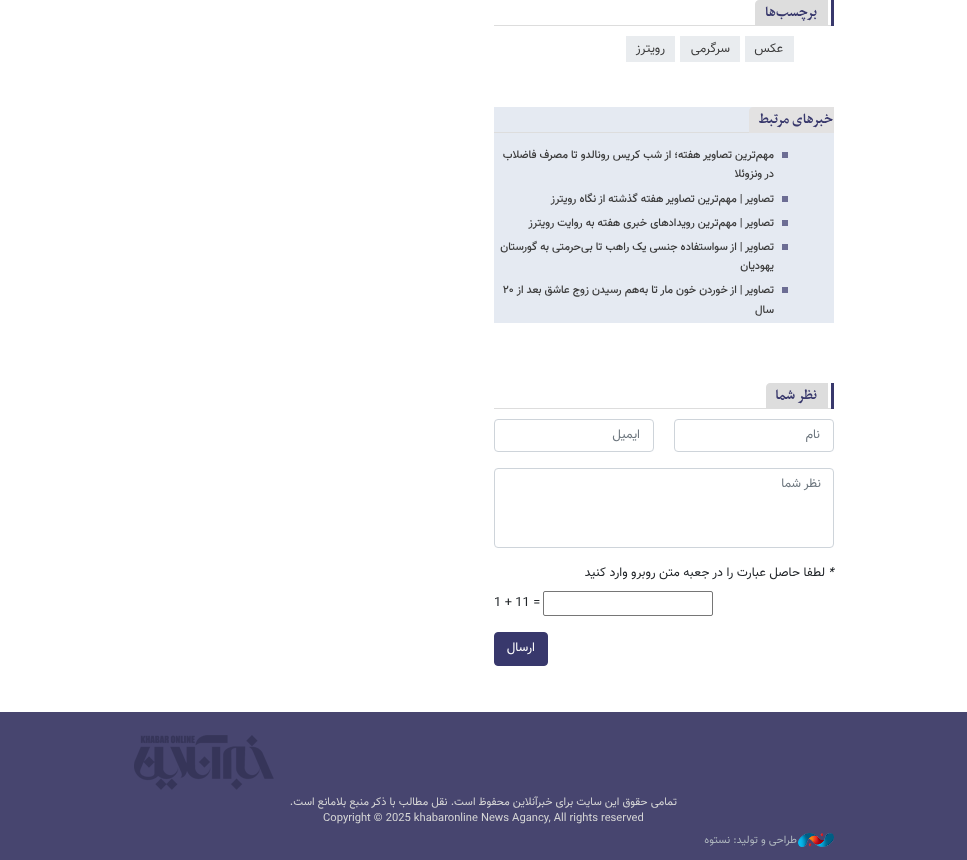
<?xml version="1.0" encoding="UTF-8"?>
<svg xmlns="http://www.w3.org/2000/svg" width="967" height="860">
    <rect width="100%" height="100%" fill="#FFFFFF"/>
    <rect x="494" y="25" width="340" height="1" fill="#DDDDDD"/>
    <path d="M 759 0 H 828 V 26 H 755 V 4 C 755 2 757 0 759 0 Z" fill="#DDDDDD"/>
    <rect x="831" y="0" width="3" height="26" fill="#38386C"/>
    <text x="817" y="16" font-family="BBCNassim" font-size="16" font-weight="700" direction="rtl" fill="#38386C">برچسب‌ها</text>
    <rect x="745" y="36" width="49" height="26" fill="#E9ECEF"/>
    <text x="783" y="52" font-family="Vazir" font-size="12.75" direction="rtl" fill="#3B3B3B">عکس</text>
    <rect x="680" y="36" width="60" height="26" fill="#E9ECEF"/>
    <text x="730" y="52" font-family="Vazir" font-size="12.75" direction="rtl" fill="#3B3B3B">سرگرمی</text>
    <rect x="626" y="36" width="49" height="26" fill="#E9ECEF"/>
    <text x="665" y="52" font-family="Vazir" font-size="12.75" direction="rtl" fill="#3B3B3B">رویترز</text>
    <rect x="494" y="107" width="340" height="216" fill="#E5EAF2"/>
    <rect x="494" y="132" width="255" height="1" fill="#DDDDDD"/>
    <path d="M 753 107 H 834 V 133 H 749 V 111 C 749 109 751 107 753 107 Z" fill="#E3E2E2"/>
    <text x="833" y="123" font-family="BBCNassim" font-size="16" font-weight="700" direction="rtl" fill="#38386C">خبرهای مرتبط</text>
    <rect x="782" y="152" width="6" height="6" fill="#6C6D94"/>
    <text font-family="Vazir" font-size="11.2" font-weight="500" direction="rtl" fill="#3B3B3B">
        <tspan x="774" y="158">مهم‌ترین تصاویر هفته؛ از شب کریس رونالدو تا مصرف فاضلاب</tspan>
        <tspan x="774" y="177">در ونزوئلا</tspan>
    </text>
    <rect x="782" y="196" width="6" height="6" fill="#6C6D94"/>
    <text x="774" y="202" font-family="Vazir" font-size="11.2" font-weight="500" direction="rtl" fill="#3B3B3B">تصاویر | مهم‌ترین تصاویر هفته گذشته از نگاه رویترز</text>
    <rect x="782" y="220" width="6" height="6" fill="#6C6D94"/>
    <text x="774" y="226" font-family="Vazir" font-size="11.2" font-weight="500" direction="rtl" fill="#3B3B3B">تصاویر | مهم‌ترین رویدادهای خبری هفته به روایت رویترز</text>
    <rect x="782" y="244" width="6" height="6" fill="#6C6D94"/>
    <text font-family="Vazir" font-size="11.2" font-weight="500" direction="rtl" fill="#3B3B3B">
        <tspan x="774" y="250">تصاویر | از سواستفاده جنسی یک راهب تا بی‌حرمتی به گورستان</tspan>
        <tspan x="774" y="269">یهودیان</tspan>
    </text>
    <rect x="782" y="287" width="6" height="6" fill="#6C6D94"/>
    <text x="774" y="293" font-family="Vazir" font-size="11.2" font-weight="500" direction="rtl" fill="#3B3B3B">تصاویر | از خوردن خون مار تا به‌هم رسیدن زوج عاشق بعد از</text>
    <text x="503" y="293" font-family="Vazir" font-size="11.2" font-weight="500" fill="#3B3B3B">۲۰</text>
    <text x="774" y="313" font-family="Vazir" font-size="11.2" font-weight="500" direction="rtl" fill="#3B3B3B">سال</text>
    <rect x="494" y="408" width="340" height="1" fill="#DDDDDD"/>
    <path d="M 770 383 H 828 V 409 H 766 V 387 C 766 385 768 383 770 383 Z" fill="#DDDDDD"/>
    <rect x="831" y="383" width="3" height="26" fill="#38386C"/>
    <text x="817" y="399" font-family="BBCNassim" font-size="16" font-weight="700" direction="rtl" fill="#38386C">نظر شما</text>
    <rect x="674.5" y="419.5" width="159" height="32" rx="3.5" fill="none" stroke="#CED4DA"/>
    <text x="820" y="438" font-family="Vazir" font-size="12.75" direction="rtl" fill="#6C757D">نام</text>
    <rect x="494.5" y="419.5" width="159" height="32" rx="3.5" fill="none" stroke="#CED4DA"/>
    <text x="640" y="438" font-family="Vazir" font-size="12.75" direction="rtl" fill="#6C757D">ایمیل</text>
    <rect x="494.5" y="468.5" width="339" height="79" rx="3.5" fill="none" stroke="#CED4DA"/>
    <text x="821" y="487" font-family="Vazir" font-size="12.75" direction="rtl" fill="#6C757D">نظر شما</text>
    <text x="828" y="576" font-family="Vazir" font-size="12.75" font-style="italic" fill="#212529">*</text>
    <text x="825" y="576" font-family="Vazir" font-size="12.75" direction="rtl" fill="#212529">لطفا حاصل عبارت را در جعبه متن روبرو وارد کنید</text>
    <rect x="543.5" y="591.5" width="169" height="24" rx="1.5" fill="none" stroke="#767676"/>
    <text x="494" y="606" font-family="Vazir" font-size="12.75" fill="#212529">1 + 11 =</text>
    <rect x="494.5" y="632.5" width="53" height="33" rx="3.5" fill="#38386C" stroke="#38386C"/>
    <text x="535" y="651" font-family="Vazir" font-size="12.75" direction="rtl" fill="#FFFFFF">ارسال</text>
    <rect x="0" y="712" width="967" height="148" fill="#47456F"/>
    <image x="134" y="735" width="140" height="55" href="img_01.png"/>
    <text x="677" y="805" font-family="Vazir" font-size="11.2" direction="rtl" fill="#D5D5D5">تمامی حقوق این سایت برای خبرآنلاین محفوظ است. نقل مطالب با ذکر منبع بلامانع است.</text>
    <text x="323" y="821" font-family="Vazir" font-size="11.2" fill="#D5D5D5">Copyright © 2025 khabaronline News Agancy, All rights reserved</text>
    <image x="798" y="833" width="36" height="14" href="img_02.png"/>
    <text x="797" y="843" font-family="Vazir" font-size="11" direction="rtl" fill="#ADB5BD">طراحی و تولید: نستوه</text>
</svg>
